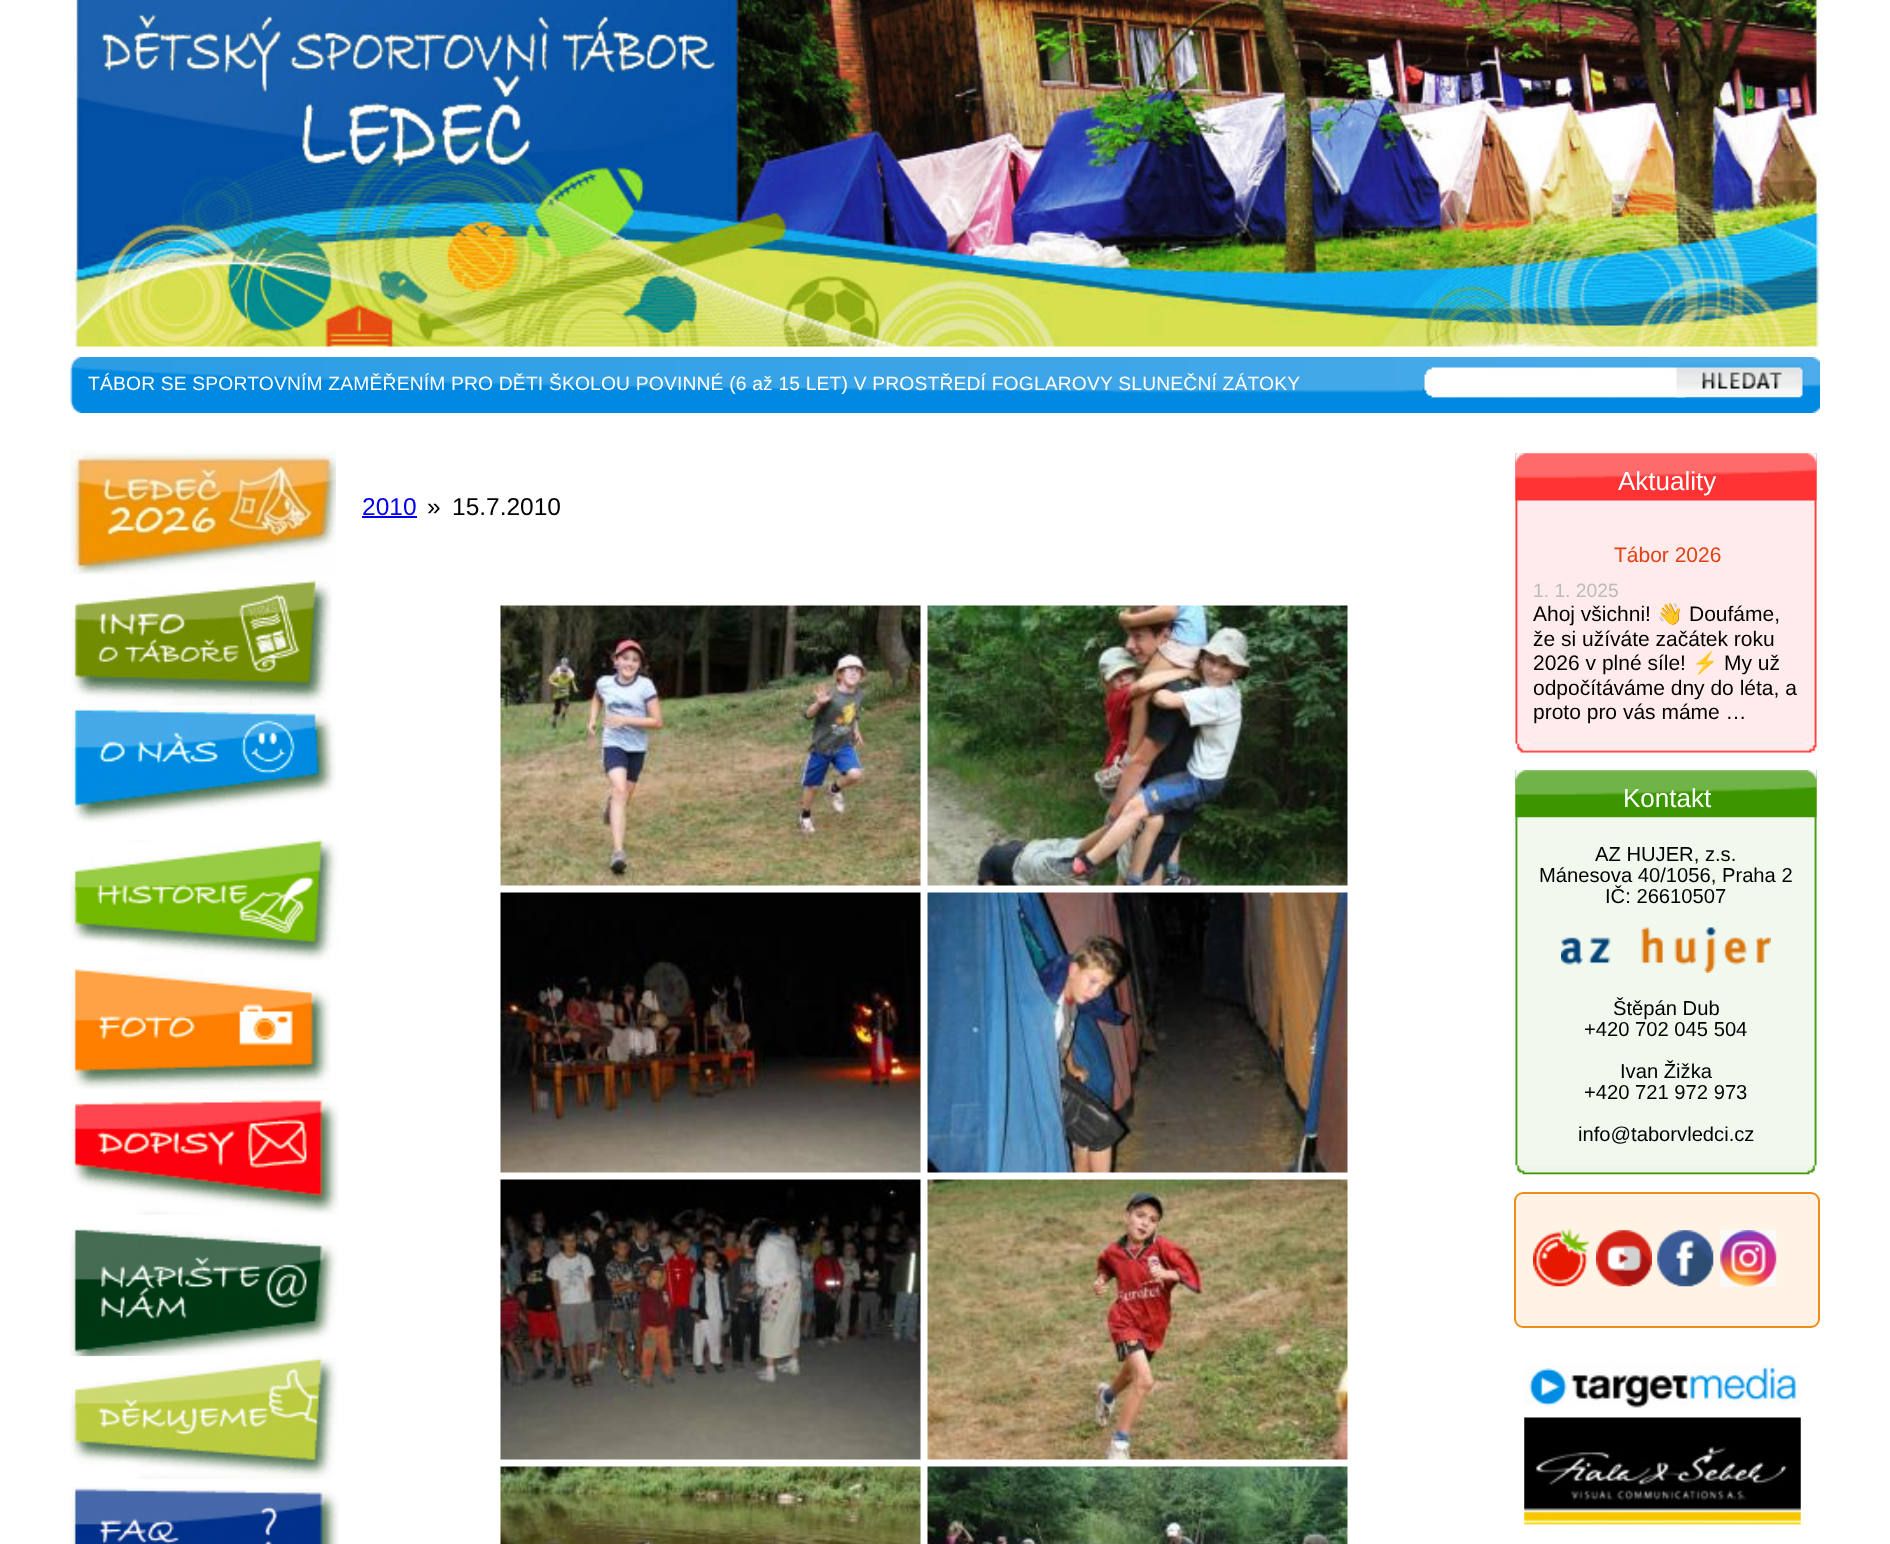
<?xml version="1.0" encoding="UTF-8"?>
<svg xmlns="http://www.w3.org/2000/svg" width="1890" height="1544">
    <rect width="100%" height="100%" fill="#FFFFFF"/>
    <image x="70" y="0" width="1751" height="347" href="img_01.png"/>
    <image x="70" y="357" width="1750" height="56" href="img_02.png"/>
    <text x="88" y="390" font-family="Liberation Sans" font-size="19.25" letter-spacing="0.18" fill="#FFFFFF">TÁBOR SE SPORTOVNÍM ZAMĚŘENÍM PRO DĚTI ŠKOLOU POVINNÉ (6 až 15 LET) V PROSTŘEDÍ FOGLAROVY SLUNEČNÍ ZÁTOKY</text>
    <image x="1422" y="366" width="264" height="32" href="img_03.png"/>
    <image x="1676" y="364" width="129" height="34" href="img_04.png"/>
    <image x="70" y="450" width="266" height="124" href="img_05.png"/>
    <image x="70" y="580" width="262" height="125" href="img_06.png"/>
    <image x="70" y="709" width="266" height="114" href="img_07.png"/>
    <image x="70" y="838" width="269" height="123" href="img_08.png"/>
    <image x="70" y="969" width="261" height="121" href="img_09.png"/>
    <image x="70" y="1099" width="269" height="116" href="img_10.png"/>
    <image x="70" y="1228" width="268" height="129" href="img_11.png"/>
    <image x="70" y="1356" width="268" height="123" href="img_12.png"/>
    <image x="70" y="1487" width="269" height="57" href="img_13.png"/>
    <text x="362" y="515" font-family="Liberation Sans" font-size="24.5" fill="#0000EE">2010</text>
    <rect x="362" y="516" width="55" height="2" fill="#0000EE"/>
    <text x="427" y="515" font-family="Liberation Sans" font-size="24.5" fill="#000000">»</text>
    <text x="452" y="515" font-family="Liberation Sans" font-size="24.5" fill="#000000">15.7.2010</text>
    <image x="500" y="605" width="421" height="281" href="img_14.png"/>
    <image x="927" y="605" width="421" height="281" href="img_15.png"/>
    <image x="500" y="892" width="421" height="281" href="img_16.png"/>
    <image x="927" y="892" width="421" height="281" href="img_17.png"/>
    <image x="500" y="1179" width="421" height="281" href="img_18.png"/>
    <image x="927" y="1179" width="421" height="281" href="img_19.png"/>
    <image x="500" y="1466" width="421" height="78" href="img_20.png"/>
    <image x="927" y="1466" width="421" height="78" href="img_21.png"/>
    <image x="1515" y="453" width="302" height="291" href="img_22.png"/>
    <image x="1515" y="453" width="302" height="48" href="img_23.png"/>
    <text x="1618" y="490" font-family="Liberation Sans" font-size="26" fill="#FFFFFF">Aktuality</text>
    <rect x="1533" y="742" width="270" height="2" fill="#EEEEEE"/>
    <text x="1614" y="562" font-family="Liberation Sans" font-size="21" fill="#E24116">Tábor 2026</text>
    <text x="1533" y="597" font-family="Liberation Sans" font-size="19.25" fill="#BBBBBB">1. 1. 2025</text>
    <text x="1533" y="621" font-family="Liberation Sans" font-size="21" fill="#000000">Ahoj všichni!</text>
    <text x="1657" y="621" font-family="Noto Color Emoji" font-size="21" fill="#000000">👋</text>
    <text x="1689" y="621" font-family="Liberation Sans" font-size="21" fill="#000000">Doufáme,</text>
    <text font-family="Liberation Sans" font-size="21" fill="#000000">
        <tspan x="1533" y="646">že si užíváte začátek roku</tspan>
        <tspan x="1533" y="670">2026 v plné síle!</tspan>
    </text>
    <text x="1692" y="670" font-family="Noto Color Emoji" font-size="21" fill="#000000">⚡</text>
    <text x="1724" y="670" font-family="Liberation Sans" font-size="21" fill="#000000">My už</text>
    <text font-family="Liberation Sans" font-size="21" fill="#000000">
        <tspan x="1533" y="695">odpočítáváme dny do léta, a</tspan>
        <tspan x="1533" y="719">proto pro vás máme …</tspan>
    </text>
    <image x="1515" y="743" width="302" height="10" href="img_24.png"/>
    <image x="1515" y="770" width="302" height="396" href="img_25.png"/>
    <image x="1515" y="770" width="302" height="48" href="img_26.png"/>
    <text x="1623" y="807" font-family="Liberation Sans" font-size="26" fill="#FFFFFF">Kontakt</text>
    <text x="1595" y="861" font-family="Liberation Sans" font-size="20.2" fill="#000000">AZ HUJER, z.s.</text>
    <text x="1539" y="882" font-family="Liberation Sans" font-size="20.2" fill="#000000">Mánesova 40/1056, Praha 2</text>
    <text x="1605" y="903" font-family="Liberation Sans" font-size="20.2" fill="#000000">IČ: 26610507</text>
    <image x="1561" y="927" width="210" height="46" href="img_27.png"/>
    <text x="1613" y="1015" font-family="Liberation Sans" font-size="20.2" fill="#000000">Štěpán Dub</text>
    <text x="1584" y="1036" font-family="Liberation Sans" font-size="20.2" fill="#000000">+420 702 045 504</text>
    <text x="1620" y="1078" font-family="Liberation Sans" font-size="20.2" fill="#000000">Ivan Žižka</text>
    <text x="1584" y="1099" font-family="Liberation Sans" font-size="20.2" fill="#000000">+420 721 972 973</text>
    <text x="1578" y="1141" font-family="Liberation Sans" font-size="20.2" fill="#000000">info@taborvledci.cz</text>
    <image x="1515" y="1165" width="300" height="10" href="img_28.png"/>
    <rect x="1515" y="1193" width="304" height="134" rx="8" fill="#FFF3E5" stroke="#F08C1A" stroke-width="2"/>
    <image x="1533" y="1228" width="56" height="59" href="img_29.png"/>
    <image x="1596" y="1230" width="56" height="57" href="img_30.png"/>
    <image x="1657" y="1230" width="57" height="57" href="img_31.png"/>
    <image x="1720" y="1230" width="57" height="57" href="img_32.png"/>
    <image x="1524" y="1363" width="277" height="45" href="img_33.png"/>
    <image x="1524" y="1417" width="277" height="108" href="img_34.png"/>
    <image x="1573" y="1543" width="38" height="1" href="img_35.png"/>
</svg>
